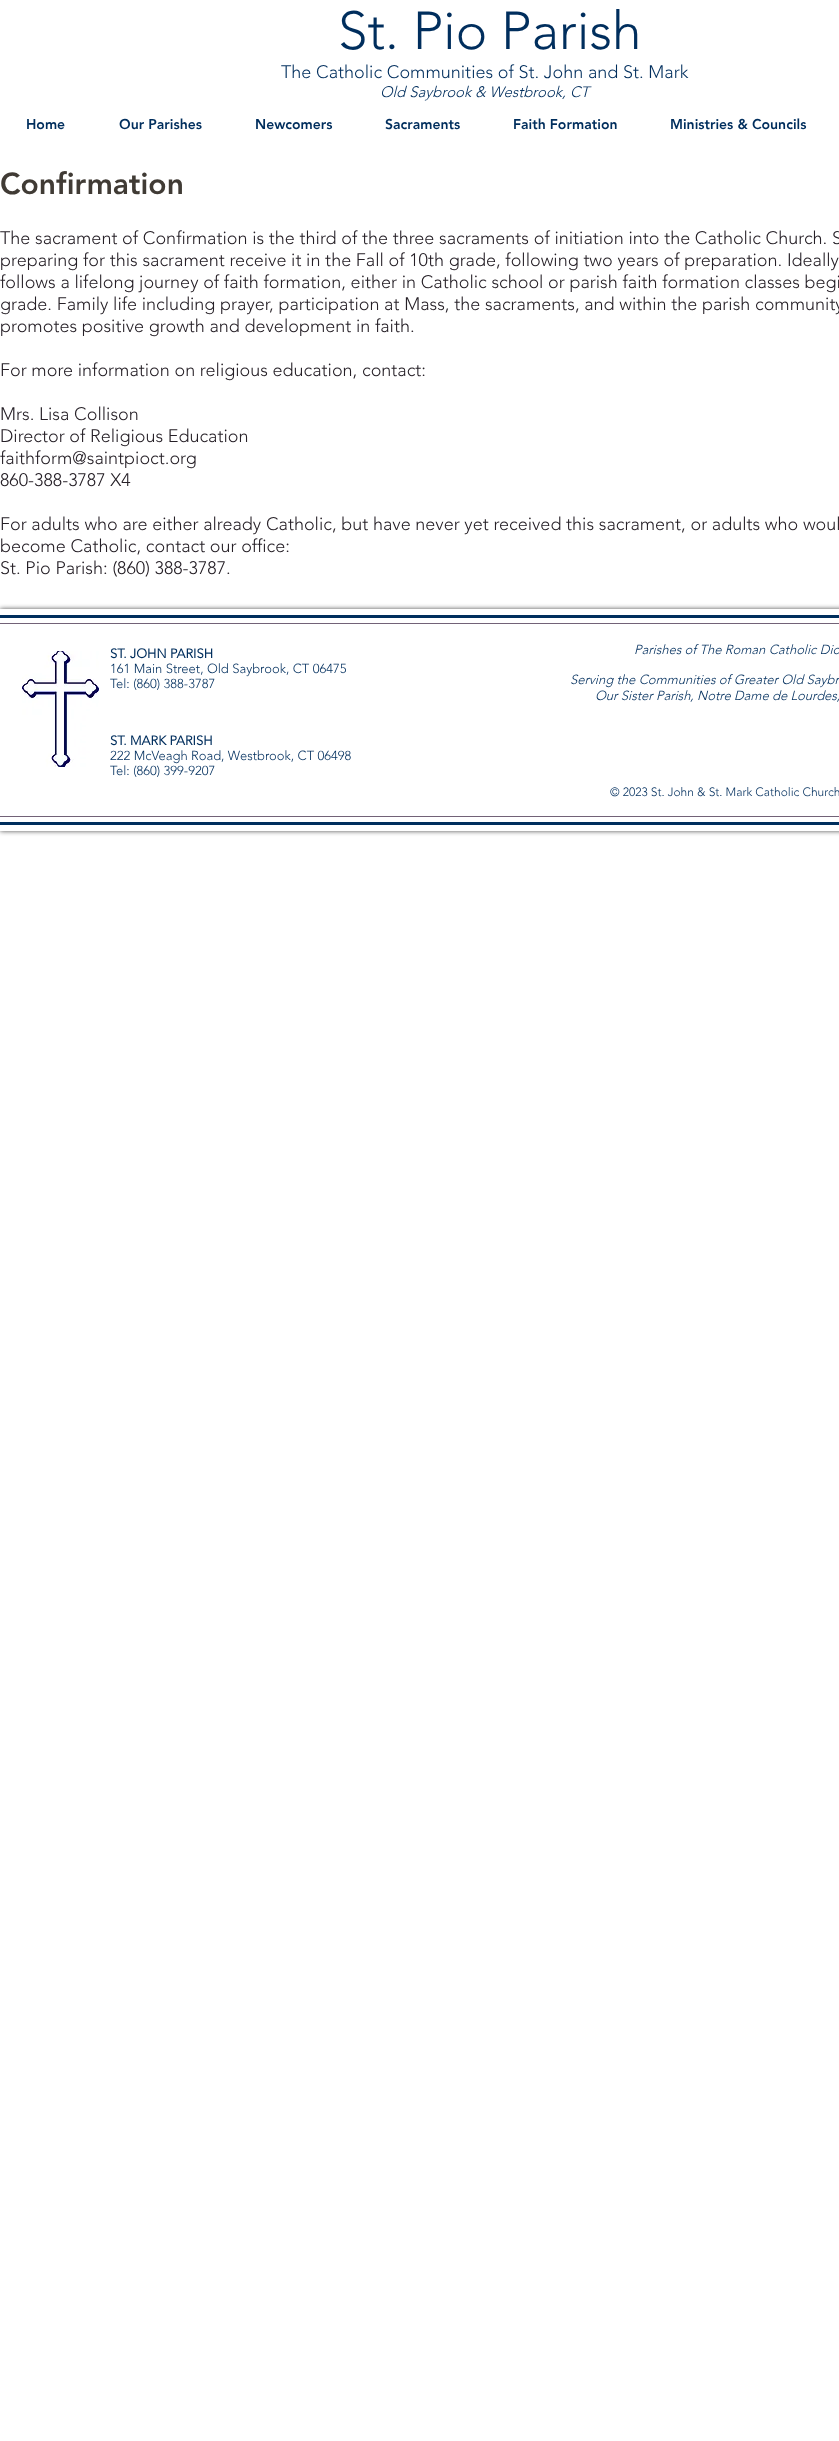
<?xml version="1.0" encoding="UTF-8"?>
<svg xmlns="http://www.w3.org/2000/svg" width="839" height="2441">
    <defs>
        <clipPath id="clip1"><path d="M 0 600 H 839 V 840 H 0 Z M 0 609 H 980 V 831 H 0 Z" clip-rule="evenodd"/></clipPath>
        <filter id="blur1" x="-50%" y="-200%" width="200%" height="500%"><feGaussianBlur stdDeviation="2.5"/></filter>
    </defs>
    <rect width="100%" height="100%" fill="#FFFFFF"/>
    <text x="338" y="49" font-family="'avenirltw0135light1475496'" font-size="53" font-weight="300" fill="#002E5D">St. Pio Parish</text>
    <text x="281" y="78" font-family="'avenirltw0135light1475496'" font-size="18" font-weight="300" fill="#002E5D">The Catholic Communities of St. John and St. Mark</text>
    <text x="380" y="97" font-family="'avenirltw0135light1475496'" font-size="15" font-weight="300" font-style="italic" fill="#002E5D">Old Saybrook &amp; Westbrook, CT</text>
    <text x="26" y="129" font-family="'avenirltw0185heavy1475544'" font-size="14" font-weight="900" fill="#002E5D">Home</text>
    <text x="119" y="129" font-family="'avenirltw0185heavy1475544'" font-size="14" font-weight="900" fill="#002E5D">Our Parishes</text>
    <text x="255" y="129" font-family="'avenirltw0185heavy1475544'" font-size="14" font-weight="900" fill="#002E5D">Newcomers</text>
    <text x="385" y="129" font-family="'avenirltw0185heavy1475544'" font-size="14" font-weight="900" fill="#002E5D">Sacraments</text>
    <text x="513" y="129" font-family="'avenirltw0185heavy1475544'" font-size="14" font-weight="900" fill="#002E5D">Faith Formation</text>
    <text x="670" y="129" font-family="'avenirltw0185heavy1475544'" font-size="14" font-weight="900" fill="#002E5D">Ministries &amp; Councils</text>
    <text x="0" y="194" font-family="'avenirltw0185heavy1475544'" font-size="30" font-weight="900" fill="#403B35">Confirmation</text>
    <text font-family="'avenirltw0135light1475496'" font-size="18" font-weight="300" fill="#262027">
        <tspan x="0" y="244">The sacrament of Confirmation is the third of the three sacraments of initiation into the Catholic Church. S</tspan>
        <tspan x="0" y="266">preparing for this sacrament receive it in the Fall of 10th grade, following two years of preparation. Ideally</tspan>
        <tspan x="0" y="288">follows a lifelong journey of faith formation, either in Catholic school or parish faith formation classes begi</tspan>
        <tspan x="0" y="310">grade. Family life including prayer, participation at Mass, the sacraments, and within the parish community</tspan>
        <tspan x="0" y="332">promotes positive growth and development in faith.</tspan>
    </text>
    <text x="0" y="376" font-family="'avenirltw0135light1475496'" font-size="18" font-weight="300" fill="#262027">For more information on religious education, contact:</text>
    <text font-family="'avenirltw0135light1475496'" font-size="18" font-weight="300" fill="#262027">
        <tspan x="0" y="420">Mrs. Lisa Collison</tspan>
        <tspan x="0" y="442">Director of Religious Education</tspan>
        <tspan x="0" y="464">faithform@saintpioct.org</tspan>
        <tspan x="0" y="486">860-388-3787 X4</tspan>
    </text>
    <text font-family="'avenirltw0135light1475496'" font-size="18" font-weight="300" fill="#262027">
        <tspan x="0" y="530">For adults who are either already Catholic, but have never yet received this sacrament, or adults who woul</tspan>
        <tspan x="0" y="552">become Catholic, contact our office:</tspan>
        <tspan x="0" y="574">St. Pio Parish: (860) 388-3787.</tspan>
    </text>
    <g clip-path="url(#clip1)">
        <rect x="0" y="609" width="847" height="222" fill="#000000" fill-opacity="0.7" filter="url(#blur1)"/>
    </g>
    <rect x="0" y="615" width="839" height="3" fill="#002E5D"/>
    <rect x="0" y="822" width="839" height="3" fill="#002E5D"/>
    <rect x="0" y="623" width="839" height="1" fill="#726277"/>
    <rect x="0" y="816" width="839" height="1" fill="#726277"/>
    <image x="22" y="651" width="77" height="116" href="img_01.png"/>
    <text x="110" y="658" font-family="'avenirltw0135light1475496'" font-size="13" font-weight="700" fill="#002E5D">ST. JOHN PARISH</text>
    <text font-family="'avenirltw0135light1475496'" font-size="13" font-weight="300" fill="#002E5D">
        <tspan x="110" y="673">161 Main Street, Old Saybrook, CT 06475</tspan>
        <tspan x="110" y="688">Tel: (860) 388-3787</tspan>
    </text>
    <text x="634" y="654" font-family="'avenirltw0135light1475496'" font-size="13" font-weight="300" font-style="italic" fill="#002E5D">Parishes of The Roman Catholic Dio</text>
    <text x="570" y="684" font-family="'avenirltw0135light1475496'" font-size="13" font-weight="300" font-style="italic" fill="#002E5D">Serving the Communities of Greater Old Saybr</text>
    <text x="595" y="700" font-family="'avenirltw0135light1475496'" font-size="13" font-weight="300" font-style="italic" fill="#002E5D">Our Sister Parish, Notre Dame de Lourdes,</text>
    <text x="110" y="745" font-family="'avenirltw0135light1475496'" font-size="13" font-weight="700" fill="#002E5D">ST. MARK PARISH</text>
    <text font-family="'avenirltw0135light1475496'" font-size="13" font-weight="300" fill="#002E5D">
        <tspan x="110" y="760">222 McVeagh Road, Westbrook, CT 06498</tspan>
        <tspan x="110" y="775">Tel: (860) 399-9207</tspan>
    </text>
    <text x="610" y="796" font-family="'avenirltw0135light1475496'" font-size="12" font-weight="300" fill="#002E5D">© 2023 St. John &amp; St. Mark Catholic Church</text>
</svg>
